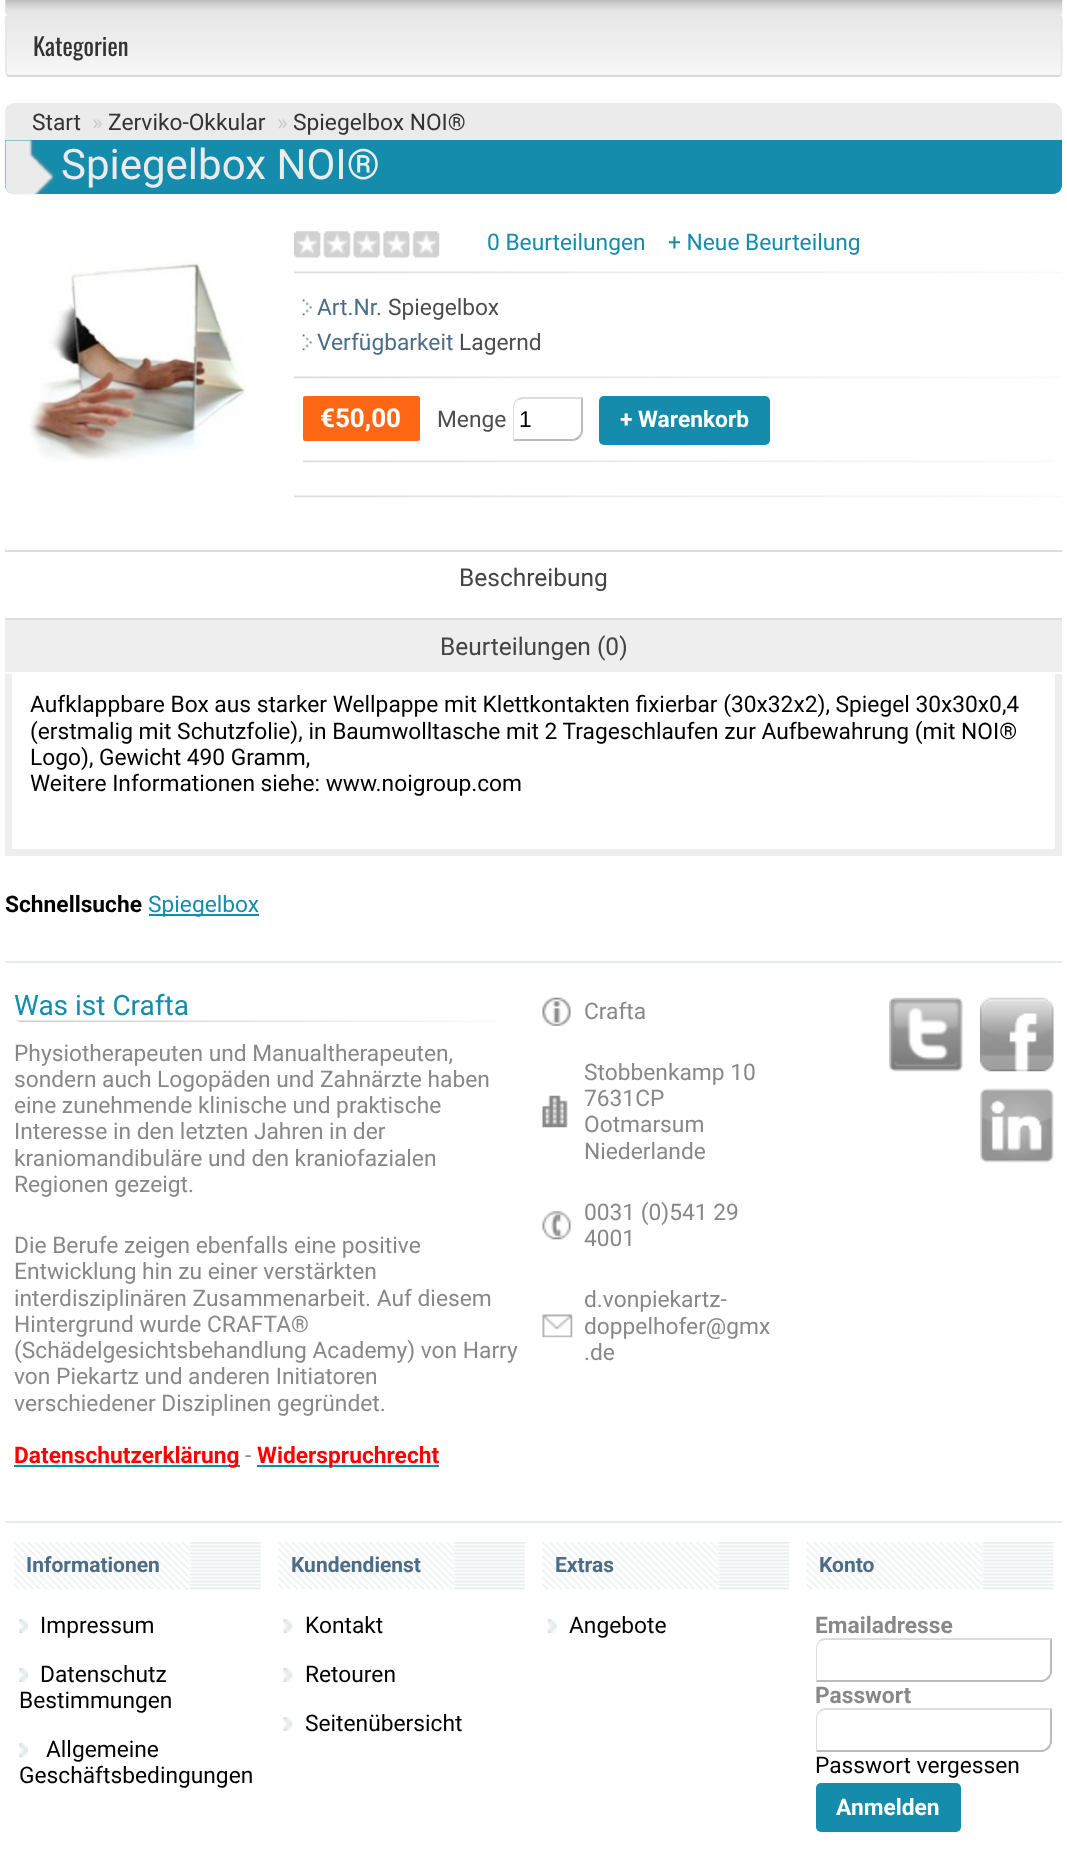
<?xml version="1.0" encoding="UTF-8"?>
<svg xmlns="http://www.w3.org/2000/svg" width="1067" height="1857">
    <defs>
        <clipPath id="clip1"><rect x="5" y="14" width="1057" height="63" rx="4"/></clipPath>
        <linearGradient id="g1" gradientUnits="userSpaceOnUse" x1="534" y1="16" x2="534" y2="75"><stop offset="0" stop-color="#E7E7E7"/><stop offset="1" stop-color="#F7F7F7"/></linearGradient>
    </defs>
    <rect width="100%" height="100%" fill="#FFFFFF"/>
    <g clip-path="url(#clip1)">
        <rect x="5" y="16" width="1057" height="59" fill="url(#g1)"/>
    </g>
    <path d="M 1060.5 75.5 L 1059 76 H 9 L 7 75.5" fill="none" stroke="#D9D9D9" stroke-width="1.8"/>
    <path d="M 7 75.5 C 5 73.5 6 41 6 36 V 27 C 6 27 4 15 9 15 H 1059 C 1063.5 15 1061.5 27 1061.5 27 V 36 C 1061.5 41 1062.5 73.5 1060.5 75.5" fill="none" stroke="#E7E7E7" stroke-width="1.8"/>
    <image x="5" y="0" width="1058" height="15" href="img_01.png"/>
    <text x="33" y="56" font-family="Oswald" font-size="24.5" fill="#333333">Kategorien</text>
    <path d="M 14 103 H 1053 C 1058 103 1062 107 1062 112 V 140 H 5 V 112 C 5 107 9 103 14 103 Z" fill="#EBEBEB"/>
    <text x="32" y="130" font-family="Roboto" font-size="22.75" fill="#333333">Start</text>
    <text x="92" y="130" font-family="Roboto" font-size="22.75" fill="#CCCCCC">»</text>
    <text x="108" y="130" font-family="Roboto" font-size="22.75" fill="#333333">Zerviko-Okkular</text>
    <text x="277" y="130" font-family="Roboto" font-size="22.75" fill="#CCCCCC">»</text>
    <text x="293" y="130" font-family="Roboto" font-size="22.75" fill="#333333">Spiegelbox NOI®</text>
    <path d="M 5 140 H 1062 V 185 C 1062 190 1058 194 1053 194 H 14 C 9 194 5 190 5 185 Z" fill="#158CAB"/>
    <image x="5" y="140" width="51" height="55" href="img_02.png"/>
    <text x="61" y="179" font-family="Roboto" font-size="42" fill="#EBEBEB">Spiegelbox NOI®</text>
    <image x="29" y="260" width="217" height="202" href="img_03.png"/>
    <image x="294" y="271" width="768" height="3" href="img_04.png"/>
    <image x="294" y="231" width="146" height="27" href="img_05.png"/>
    <text x="487" y="250" font-family="Roboto" font-size="22.75" fill="#158CAB">0 Beurteilungen</text>
    <text x="668" y="250" font-family="Roboto" font-size="22.75" fill="#158CAB">+ Neue Beurteilung</text>
    <image x="294" y="376" width="768" height="3" href="img_04.png"/>
    <image x="302" y="299" width="10" height="17" href="img_06.png"/>
    <text x="317" y="315" font-family="Roboto" font-size="22.75" fill="#4D6C85">Art.Nr.</text>
    <text x="388" y="315" font-family="Roboto" font-size="22.75" fill="#4D4D4D">Spiegelbox</text>
    <image x="302" y="334" width="10" height="17" href="img_06.png"/>
    <text x="317" y="350" font-family="Roboto" font-size="22.75" fill="#4D6C85">Verfügbarkeit</text>
    <text x="459" y="350" font-family="Roboto" font-size="22.75" fill="#4D4D4D">Lagernd</text>
    <image x="294" y="495" width="768" height="3" href="img_04.png"/>
    <rect x="303" y="396" width="117" height="45" rx="2" fill="#FF6715"/>
    <text x="320" y="427" font-family="Roboto" font-size="26" font-weight="700" fill="#FFFFFF">€50,00</text>
    <image x="302" y="460" width="751" height="3" href="img_07.png"/>
    <text x="437" y="427" font-family="Roboto" font-size="22.75" fill="#4D4D4D">Menge</text>
    <path d="M 523 399 C 521 399 518 400 517 401 L 516 400 C 517 399 519 398 521 397 H 583 L 581 399 Z" fill="#DDDDDD"/>
    <path d="M 583 397 V 432 C 582 434 581 436 580 438 L 578 436 C 580 435 581 433 581 430 V 399 Z" fill="#BBBBBB"/>
    <path d="M 513 441 H 572 C 575 441 578 440 580 438 L 578 436 C 577 438 574 439 572 439 H 515 Z" fill="#BBBBBB"/>
    <path d="M 513 441 V 408 C 513 405 514 402 516 400 L 517 401 C 515 403 514 405 514 408 V 439 H 515 Z" fill="#DDDDDD"/>
    <text x="519" y="427" font-family="Liberation Sans" font-size="22.75" fill="#000000">1</text>
    <rect x="599" y="396" width="171" height="49" rx="5" fill="#158CAB"/>
    <text x="620" y="427" font-family="Roboto" font-size="22.75" font-weight="700" fill="#FFFFFF">+ Warenkorb</text>
    <rect x="5" y="620" width="1057" height="52" fill="#EEEEEE"/>
    <rect x="5" y="550" width="1057" height="2" fill="#DDDDDD"/>
    <text x="459" y="586" font-family="Roboto" font-size="24.5" fill="#444444">Beschreibung</text>
    <rect x="5" y="618" width="1057" height="2" fill="#DDDDDD"/>
    <text x="440" y="655" font-family="Roboto" font-size="24.5" fill="#444444">Beurteilungen (0)</text>
    <rect x="1055" y="674" width="7" height="182" fill="#EEEEEE"/>
    <rect x="5" y="849" width="1057" height="7" fill="#EEEEEE"/>
    <rect x="5" y="674" width="7" height="182" fill="#EEEEEE"/>
    <text font-family="Roboto" font-size="22.75" fill="#000000">
        <tspan x="30" y="712">Aufklappbare Box aus starker Wellpappe mit Klettkontakten fixierbar (30x32x2), Spiegel 30x30x0,4</tspan>
        <tspan x="30" y="739">(erstmalig mit Schutzfolie), in Baumwolltasche mit 2 Trageschlaufen zur Aufbewahrung (mit NOI®</tspan>
        <tspan x="30" y="765">Logo), Gewicht 490 Gramm,</tspan>
        <tspan x="30" y="791">Weitere Informationen siehe: www.noigroup.com</tspan>
    </text>
    <text x="5" y="912" font-family="Roboto" font-size="22.75" font-weight="700" fill="#000000">Schnellsuche</text>
    <rect x="149" y="914" width="110" height="2" fill="#158CAB"/>
    <text x="148" y="912" font-family="Roboto" font-size="22.75" fill="#158CAB">Spiegelbox</text>
    <rect x="5" y="961" width="1057" height="2" fill="#E7EDED"/>
    <image x="16" y="1020" width="482" height="3" href="img_08.png"/>
    <text x="14" y="1015" font-family="Roboto" font-size="28" fill="#158CAB">Was ist Crafta</text>
    <text font-family="Roboto" font-size="22.75" fill="#888888">
        <tspan x="14" y="1061">Physiotherapeuten und Manualtherapeuten,</tspan>
        <tspan x="14" y="1087">sondern auch Logopäden und Zahnärzte haben</tspan>
        <tspan x="14" y="1113">eine zunehmende klinische und praktische</tspan>
        <tspan x="14" y="1139">Interesse in den letzten Jahren in der</tspan>
        <tspan x="14" y="1166">kraniomandibuläre und den kraniofazialen</tspan>
        <tspan x="14" y="1192">Regionen gezeigt.</tspan>
    </text>
    <text font-family="Roboto" font-size="22.75" fill="#888888">
        <tspan x="14" y="1253">Die Berufe zeigen ebenfalls eine positive</tspan>
        <tspan x="14" y="1279">Entwicklung hin zu einer verstärkten</tspan>
        <tspan x="14" y="1306">interdisziplinären Zusammenarbeit. Auf diesem</tspan>
        <tspan x="14" y="1332">Hintergrund wurde CRAFTA®</tspan>
        <tspan x="14" y="1358">(Schädelgesichtsbehandlung Academy) von Harry</tspan>
        <tspan x="14" y="1384">von Piekartz und anderen Initiatoren</tspan>
        <tspan x="14" y="1411">verschiedener Disziplinen gegründet.</tspan>
    </text>
    <rect x="14" y="1465" width="226" height="2" fill="#158CAB"/>
    <text x="14" y="1463" font-family="Roboto" font-size="22.75" font-weight="700" fill="#FF0000">Datenschutzerklärung</text>
    <text x="245" y="1463" font-family="Roboto" font-size="22.75" fill="#888888">-</text>
    <rect x="257" y="1465" width="182" height="2" fill="#158CAB"/>
    <text x="257" y="1463" font-family="Roboto" font-size="22.75" font-weight="700" fill="#FF0000">Widerspruchrecht</text>
    <image x="542" y="997" width="29" height="29" href="img_09.png"/>
    <text x="584" y="1019" font-family="Roboto" font-size="22.75" fill="#888888">Crafta</text>
    <image x="542" y="1095" width="26" height="33" href="img_10.png"/>
    <text font-family="Roboto" font-size="22.75" fill="#888888">
        <tspan x="584" y="1080">Stobbenkamp 10</tspan>
        <tspan x="584" y="1106">7631CP</tspan>
        <tspan x="584" y="1132">Ootmarsum</tspan>
        <tspan x="584" y="1159">Niederlande</tspan>
    </text>
    <image x="542" y="1211" width="29" height="29" href="img_11.png"/>
    <text font-family="Roboto" font-size="22.75" fill="#888888">
        <tspan x="584" y="1220">0031 (0)541 29</tspan>
        <tspan x="584" y="1246">4001</tspan>
    </text>
    <image x="542" y="1314" width="31" height="24" href="img_12.png"/>
    <text font-family="Roboto" font-size="22.75" fill="#888888">
        <tspan x="584" y="1307">d.vonpiekartz-</tspan>
        <tspan x="584" y="1334">doppelhofer@gmx</tspan>
        <tspan x="584" y="1360">.de</tspan>
    </text>
    <image x="889" y="997" width="74" height="75" href="img_13.png"/>
    <image x="980" y="997" width="74" height="75" href="img_14.png"/>
    <image x="980" y="1088" width="74" height="75" href="img_15.png"/>
    <rect x="5" y="1521" width="1057" height="2" fill="#E7EDED"/>
    <image x="14" y="1542" width="247" height="48" href="img_16.png"/>
    <text x="26" y="1572" font-family="Roboto" font-size="21" font-weight="700" fill="#4D6C85">Informationen</text>
    <image x="19" y="1619" width="9" height="14" href="img_17.png"/>
    <text x="40" y="1633" font-family="Roboto" font-size="22.75" fill="#000000">Impressum</text>
    <image x="19" y="1668" width="9" height="14" href="img_18.png"/>
    <text x="40" y="1682" font-family="Roboto" font-size="22.75" fill="#000000">Datenschutz</text>
    <text x="19" y="1708" font-family="Roboto" font-size="22.75" fill="#000000">Bestimmungen</text>
    <image x="19" y="1743" width="9" height="15" href="img_19.png"/>
    <text x="46" y="1757" font-family="Roboto" font-size="22.75" fill="#000000">Allgemeine</text>
    <text x="19" y="1783" font-family="Roboto" font-size="22.75" fill="#000000">Geschäftsbedingungen</text>
    <image x="278" y="1542" width="247" height="48" href="img_20.png"/>
    <text x="291" y="1572" font-family="Roboto" font-size="21" font-weight="700" fill="#4D6C85">Kundendienst</text>
    <image x="283" y="1619" width="10" height="14" href="img_21.png"/>
    <text x="305" y="1633" font-family="Roboto" font-size="22.75" fill="#000000">Kontakt</text>
    <image x="283" y="1668" width="10" height="14" href="img_22.png"/>
    <text x="305" y="1682" font-family="Roboto" font-size="22.75" fill="#000000">Retouren</text>
    <image x="283" y="1717" width="10" height="14" href="img_21.png"/>
    <text x="305" y="1731" font-family="Roboto" font-size="22.75" fill="#000000">Seitenübersicht</text>
    <image x="542" y="1542" width="248" height="48" href="img_23.png"/>
    <text x="555" y="1572" font-family="Roboto" font-size="21" font-weight="700" fill="#4D6C85">Extras</text>
    <image x="547" y="1619" width="10" height="14" href="img_24.png"/>
    <text x="569" y="1633" font-family="Roboto" font-size="22.75" fill="#000000">Angebote</text>
    <image x="806" y="1542" width="248" height="48" href="img_25.png"/>
    <text x="819" y="1572" font-family="Roboto" font-size="21" font-weight="700" fill="#4D6C85">Konto</text>
    <text x="815" y="1633" font-family="Roboto" font-size="22.75" font-weight="700" fill="#888888">Emailadresse</text>
    <path d="M 826 1638 C 823 1638 820 1639 819 1641 L 820 1642 C 821 1641 824 1640 826 1640 H 1050 L 1052 1638 Z" fill="#DDDDDD"/>
    <path d="M 1052 1638 V 1673 C 1051 1675 1050 1677 1049 1679 L 1047 1677 C 1049 1676 1050 1674 1050 1671 V 1640 Z" fill="#BBBBBB"/>
    <path d="M 816 1682 L 817 1680 H 1041 C 1044 1680 1046 1679 1047 1677 L 1049 1679 C 1047 1680 1045 1681 1043 1682 Z" fill="#BBBBBB"/>
    <path d="M 819 1641 C 817 1643 816 1646 816 1648 V 1681 L 817 1680 V 1648 C 817 1646 818 1644 820 1642 Z" fill="#DDDDDD"/>
    <text x="815" y="1703" font-family="Roboto" font-size="22.75" font-weight="700" fill="#888888">Passwort</text>
    <path d="M 826 1708 C 823 1708 820 1709 819 1711 L 820 1712 C 821 1711 824 1710 826 1710 H 1050 L 1052 1708 Z" fill="#DDDDDD"/>
    <path d="M 1052 1708 V 1743 C 1051 1745 1050 1747 1049 1749 L 1047 1747 C 1049 1746 1050 1744 1050 1741 V 1710 Z" fill="#BBBBBB"/>
    <path d="M 816 1752 L 817 1750 H 1041 C 1044 1750 1046 1749 1047 1747 L 1049 1749 C 1047 1750 1045 1751 1043 1752 Z" fill="#BBBBBB"/>
    <path d="M 819 1711 C 817 1713 816 1716 816 1718 V 1751 L 817 1750 V 1718 C 817 1716 818 1714 820 1712 Z" fill="#DDDDDD"/>
    <text x="815" y="1773" font-family="Roboto" font-size="22.75" fill="#000000">Passwort vergessen</text>
    <rect x="816" y="1783" width="145" height="49" rx="5" fill="#158CAB"/>
    <text x="836" y="1815" font-family="Roboto" font-size="22.75" font-weight="700" fill="#FFFFFF">Anmelden</text>
</svg>
